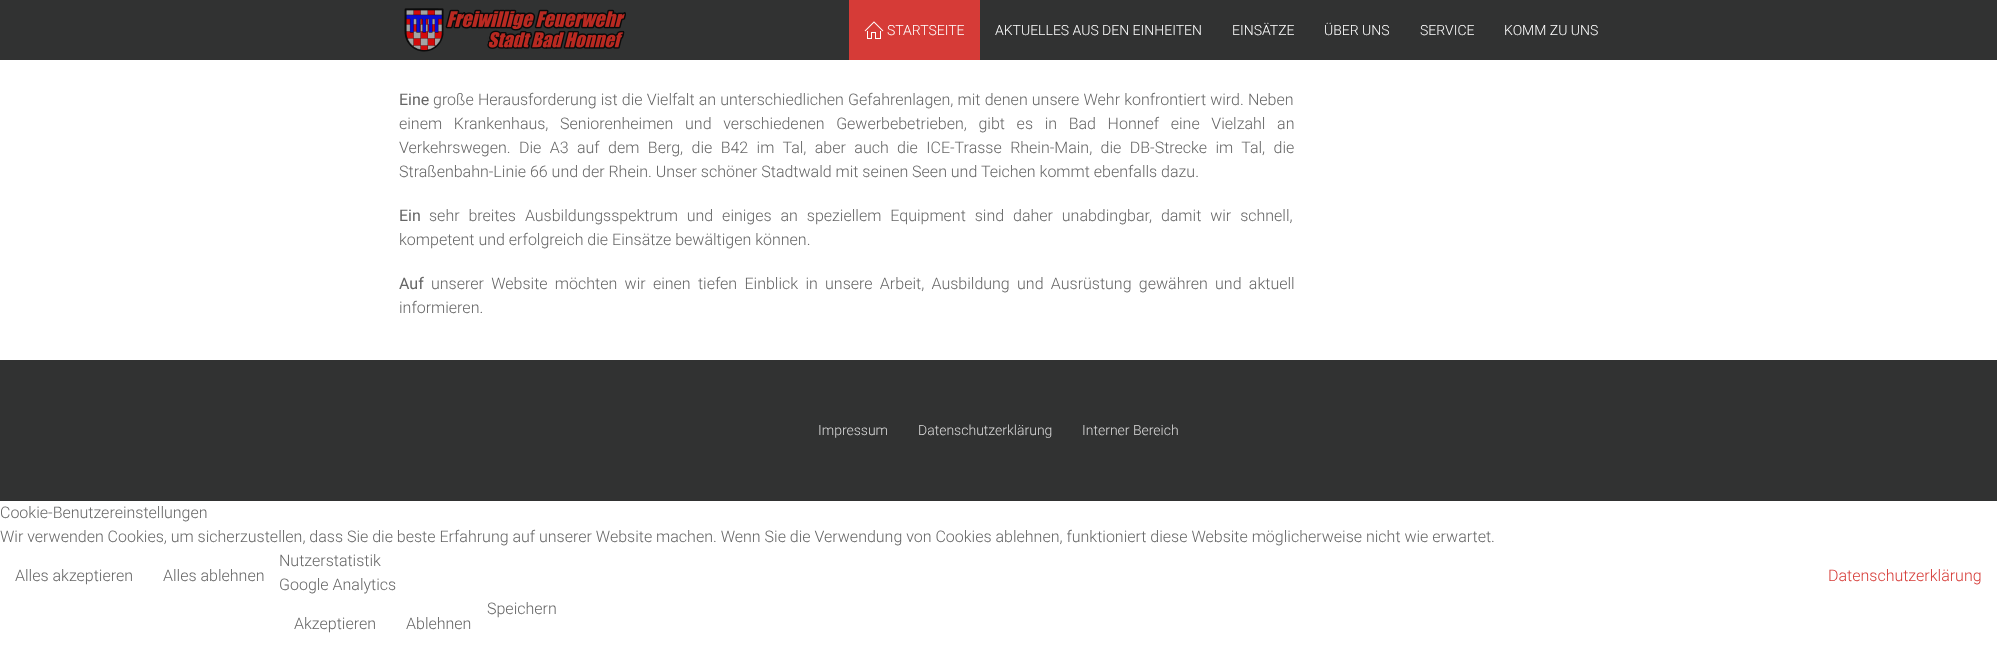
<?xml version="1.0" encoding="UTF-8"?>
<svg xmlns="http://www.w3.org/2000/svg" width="1997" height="651">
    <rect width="100%" height="100%" fill="#FFFFFF"/>
    <rect x="0" y="0" width="1997" height="60" fill="#313232"/>
    <image x="404" y="8" width="222" height="44" href="img_01.png"/>
    <rect x="849" y="0" width="131" height="60" fill="#D63B37"/>
    <image x="864" y="21" width="20" height="18" href="img_02.png"/>
    <text x="887" y="35" font-family="Roboto" font-size="14" font-weight="300" fill="#FFFFFF">STARTSEITE</text>
    <text x="995" y="35" font-family="Roboto" font-size="14" font-weight="300" fill="#FFFFFF">AKTUELLES AUS DEN EINHEITEN</text>
    <text x="1232" y="35" font-family="Roboto" font-size="14" font-weight="300" fill="#FFFFFF">EINSÄTZE</text>
    <text x="1324" y="35" font-family="Roboto" font-size="14" font-weight="300" fill="#FFFFFF">ÜBER UNS</text>
    <text x="1420" y="35" font-family="Roboto" font-size="14" font-weight="300" fill="#FFFFFF">SERVICE</text>
    <text x="1504" y="35" font-family="Roboto" font-size="14" font-weight="300" fill="#FFFFFF">KOMM ZU UNS</text>
    <text x="399" y="105" font-family="Roboto" font-size="16" fill="#666666">Eine</text>
    <text x="433" y="105" word-spacing="0.25" font-family="Roboto" font-size="16" font-weight="300" fill="#666666">große Herausforderung ist die Vielfalt an unterschiedlichen Gefahrenlagen, mit denen unsere Wehr konfrontiert wird. Neben</text>
    <text font-family="Roboto" font-size="16" font-weight="300" fill="#666666">
        <tspan x="399" y="129" word-spacing="7.75">einem Krankenhaus, Seniorenheimen und verschiedenen Gewerbebetrieben, gibt es in Bad Honnef eine Vielzahl an</tspan>
        <tspan x="399" y="153" word-spacing="4.5">Verkehrswegen. Die A3 auf dem Berg, die B42 im Tal, aber auch die ICE-Trasse Rhein-Main, die DB-Strecke im Tal, die</tspan>
        <tspan x="399" y="177">Straßenbahn-Linie 66 und der Rhein. Unser schöner Stadtwald mit seinen Seen und Teichen kommt ebenfalls dazu.</tspan>
    </text>
    <text x="399" y="221" font-family="Roboto" font-size="16" fill="#666666">Ein</text>
    <text x="429" y="221" word-spacing="5" font-family="Roboto" font-size="16" font-weight="300" fill="#666666">sehr breites Ausbildungsspektrum und einiges an speziellem Equipment sind daher unabdingbar, damit wir schnell,</text>
    <text x="399" y="245" font-family="Roboto" font-size="16" font-weight="300" fill="#666666">kompetent und erfolgreich die Einsätze bewältigen können.</text>
    <text x="399" y="289" font-family="Roboto" font-size="16" fill="#666666">Auf</text>
    <text x="431" y="289" word-spacing="3.4" font-family="Roboto" font-size="16" font-weight="300" fill="#666666">unserer Website möchten wir einen tiefen Einblick in unsere Arbeit, Ausbildung und Ausrüstung gewähren und aktuell</text>
    <text x="399" y="313" font-family="Roboto" font-size="16" font-weight="300" fill="#666666">informieren.</text>
    <rect x="0" y="360" width="1997" height="141" fill="#313232"/>
    <text x="818" y="435" font-family="Roboto" font-size="14" font-weight="300" fill="#DBDBDB">Impressum</text>
    <text x="918" y="435" font-family="Roboto" font-size="14" font-weight="300" fill="#DBDBDB">Datenschutzerklärung</text>
    <text x="1082" y="435" font-family="Roboto" font-size="14" font-weight="300" fill="#DBDBDB">Interner Bereich</text>
    <text font-family="Roboto" font-size="16" font-weight="300" fill="#666666">
        <tspan x="0" y="518">Cookie-Benutzereinstellungen</tspan>
        <tspan x="0" y="542">Wir verwenden Cookies, um sicherzustellen, dass Sie die beste Erfahrung auf unserer Website machen. Wenn Sie die Verwendung von Cookies ablehnen, funktioniert diese Website möglicherweise nicht wie erwartet.</tspan>
    </text>
    <text font-family="Roboto" font-size="16" font-weight="300" fill="#666666">
        <tspan x="279" y="566">Nutzerstatistik</tspan>
        <tspan x="279" y="590">Google Analytics</tspan>
    </text>
    <text x="294" y="629" font-family="Roboto" font-size="16" font-weight="300" fill="#666666">Akzeptieren</text>
    <text x="406" y="629" font-family="Roboto" font-size="16" font-weight="300" fill="#666666">Ablehnen</text>
    <text x="15" y="581" font-family="Roboto" font-size="16" font-weight="300" fill="#666666">Alles akzeptieren</text>
    <text x="163" y="581" font-family="Roboto" font-size="16" font-weight="300" fill="#666666">Alles ablehnen</text>
    <text x="1828" y="581" font-family="Roboto" font-size="16" font-weight="300" fill="#D63B37">Datenschutzerklärung</text>
    <text x="487" y="614" font-family="Roboto" font-size="16" font-weight="300" fill="#666666">Speichern</text>
</svg>
